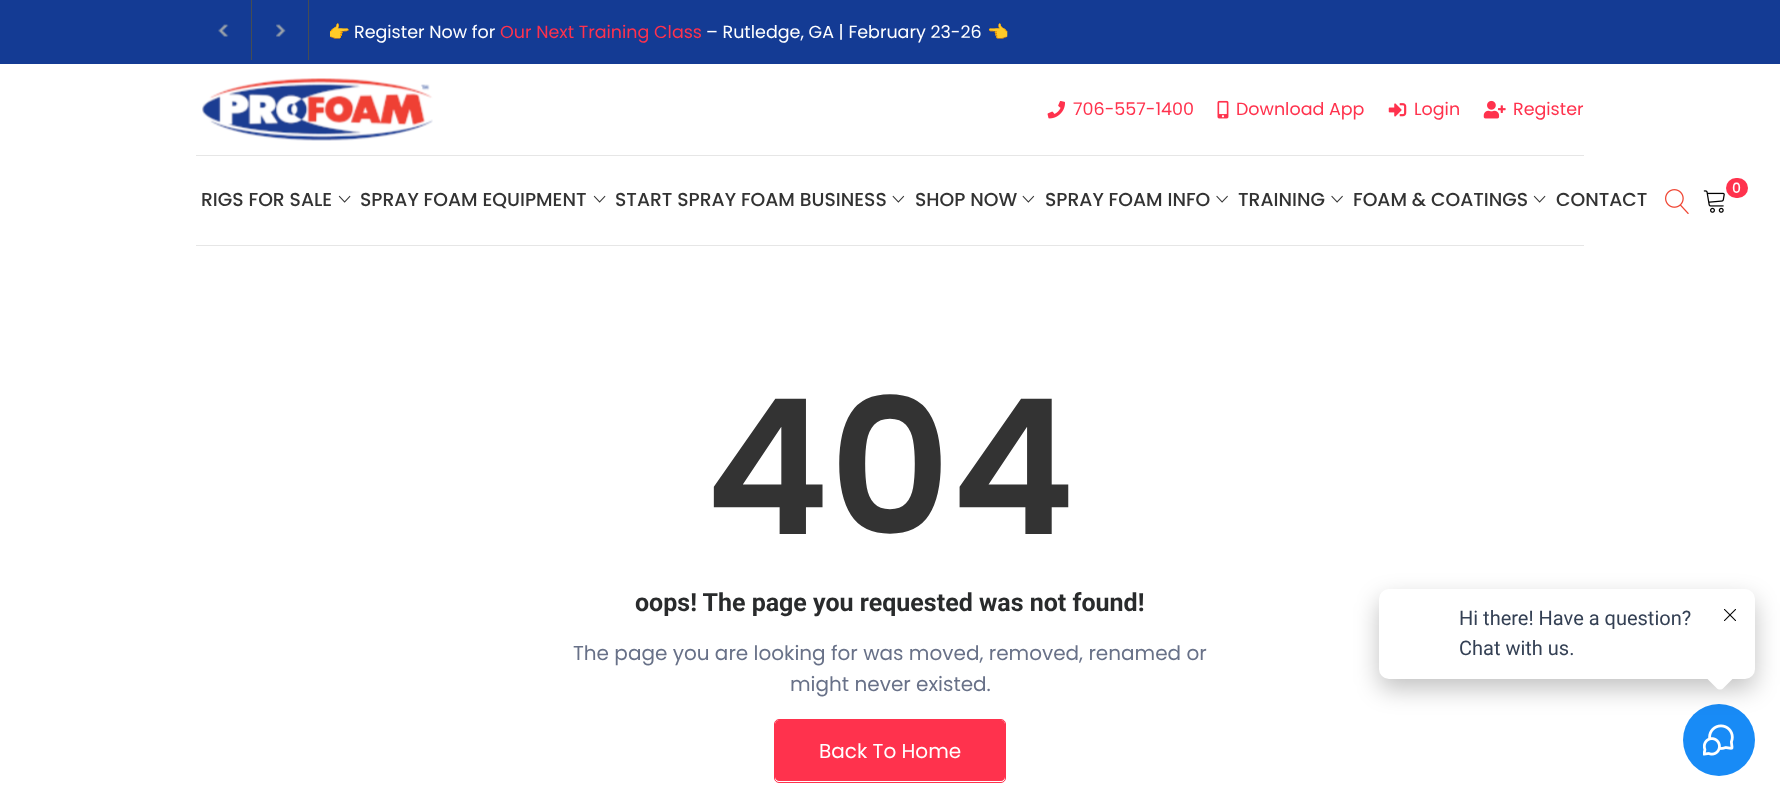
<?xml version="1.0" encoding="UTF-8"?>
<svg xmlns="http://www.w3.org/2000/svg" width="1780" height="801">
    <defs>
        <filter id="blur1" x="-50%" y="-200%" width="200%" height="500%"><feGaussianBlur stdDeviation="12.5"/></filter>
    </defs>
    <rect width="100%" height="100%" fill="#FFFFFF"/>
    <rect x="0" y="0" width="1780" height="64" fill="#143B94"/>
    <rect x="251" y="0" width="1" height="60" fill="#464D53"/>
    <image x="218" y="24" width="11" height="13" href="img_01.png"/>
    <rect x="308" y="0" width="1" height="60" fill="#464D53"/>
    <image x="276" y="24" width="10" height="13" href="img_02.png"/>
    <text x="328" y="38" font-family="Noto Color Emoji" font-size="17.5" fill="#FFFFFF">👉</text>
    <text x="354" y="38" font-family="Poppins" font-size="17.5" fill="#FFFFFF">Register Now for</text>
    <text x="500" y="38" font-family="Poppins" font-size="17.5" fill="#FF324D">Our Next Training Class</text>
    <text x="706" y="38" font-family="Poppins" font-size="17.5" fill="#FFFFFF">– Rutledge, GA | February 23-26</text>
    <text x="987" y="38" font-family="Noto Color Emoji" font-size="17.5" fill="#FFFFFF">👈</text>
    <image x="202" y="78" width="231" height="63" href="img_03.png"/>
    <image x="1047" y="101" width="18" height="18" href="img_04.png"/>
    <text x="1073" y="115" font-family="Poppins" font-size="17.5" fill="#FF324D">706-557-1400</text>
    <image x="1217" y="100" width="12" height="19" href="img_05.png"/>
    <text x="1236" y="115" font-family="Poppins" font-size="17.5" fill="#FF324D">Download App</text>
    <image x="1388" y="103" width="19" height="14" href="img_06.png"/>
    <text x="1414" y="115" font-family="Poppins" font-size="17.5" fill="#FF324D">Login</text>
    <image x="1483" y="100" width="23" height="19" href="img_07.png"/>
    <text x="1513" y="115" font-family="Poppins" font-size="17.5" fill="#FF324D">Register</text>
    <rect x="196" y="155" width="1388" height="1" fill="#E6E6E6"/>
    <rect x="196" y="245" width="1388" height="1" fill="#E6E6E6"/>
    <rect x="1726" y="178" width="22" height="20" rx="10" fill="#FF324D"/>
    <text x="1732" y="193" font-family="Poppins" font-size="14" font-weight="500" fill="#FFFFFF">0</text>
    <image x="1703" y="190" width="22" height="23" href="img_08.png"/>
    <image x="1665" y="189" width="24" height="25" href="img_09.png"/>
    <text x="201" y="206" font-family="Poppins" font-size="18.75" font-weight="500" fill="#333333">RIGS FOR SALE</text>
    <image x="338" y="195" width="13" height="8" href="img_10.png"/>
    <text x="360" y="206" font-family="Poppins" font-size="18.75" font-weight="500" fill="#333333">SPRAY FOAM EQUIPMENT</text>
    <image x="593" y="195" width="13" height="8" href="img_10.png"/>
    <text x="615" y="206" font-family="Poppins" font-size="18.75" font-weight="500" fill="#333333">START SPRAY FOAM BUSINESS</text>
    <image x="892" y="195" width="13" height="8" href="img_11.png"/>
    <text x="915" y="206" font-family="Poppins" font-size="18.75" font-weight="500" fill="#333333">SHOP NOW</text>
    <image x="1022" y="195" width="13" height="8" href="img_11.png"/>
    <text x="1045" y="206" font-family="Poppins" font-size="18.75" font-weight="500" fill="#333333">SPRAY FOAM INFO</text>
    <image x="1216" y="195" width="12" height="8" href="img_12.png"/>
    <text x="1238" y="206" font-family="Poppins" font-size="18.75" font-weight="500" fill="#333333">TRAINING</text>
    <image x="1331" y="195" width="12" height="8" href="img_12.png"/>
    <text x="1353" y="206" font-family="Poppins" font-size="18.75" font-weight="500" fill="#333333">FOAM &amp; COATINGS</text>
    <image x="1533" y="195" width="13" height="8" href="img_10.png"/>
    <text x="1556" y="206" font-family="Poppins" font-size="18.75" font-weight="500" fill="#333333">CONTACT</text>
    <text x="705" y="534" font-family="Poppins" font-size="188" font-weight="600" fill="#333333">404</text>
    <text x="635" y="611" font-family="Roboto" font-size="25" font-weight="700" fill="#292B2C">oops! The page you requested was not found!</text>
    <text x="573" y="660" font-family="Poppins" font-size="20" fill="#687188">The page you are looking for was moved, removed, renamed or</text>
    <text x="790" y="691" font-family="Poppins" font-size="20" fill="#687188">might never existed.</text>
    <rect x="774.5" y="719.5" width="231" height="63" rx="4.5" fill="none" stroke="#FF324D"/>
    <path d="M 779 720 H 893 V 781 H 779 C 777 781 775 779 775 777 V 724 C 775 722 777 720 779 720 Z" fill="#FF324D"/>
    <path d="M 888 720 H 1001 C 1003 720 1005 722 1005 724 V 777 C 1005 779 1003 781 1001 781 H 888 Z" fill="#FF324D"/>
    <text x="819" y="758" font-family="Poppins" font-size="20" fill="#FFFFFF">Back To Home</text>
    <circle cx="1719" cy="740" r="36" fill="#188BF6"/>
    <image x="1703" y="724" width="31" height="32" href="img_14.png"/>
    <rect x="1379" y="599" width="376" height="90" rx="10" fill="#000000" fill-opacity="0.24" filter="url(#blur1)"/>
    <rect x="1379" y="589" width="376" height="90" rx="10" fill="#FFFFFF"/>
    <text font-family="Roboto" font-size="20" fill="#344054">
        <tspan x="1459" y="625">Hi there! Have a question?</tspan>
        <tspan x="1459" y="655">Chat with us.</tspan>
    </text>
    <path d="M 1723.5 659.5 L 1734 670 C 1736 672 1736 675.5 1734 677.5 L 1723.5 688 C 1721.5 690 1718.5 690 1716.5 688 L 1706 677.5 C 1704 675.5 1704 672 1706 670 L 1716.5 659.5 C 1718.5 657.5 1721.5 657.5 1723.5 659.5 Z" fill="#FFFFFF"/>
    <image x="1724" y="609" width="12" height="12" href="img_13.png"/>
</svg>
